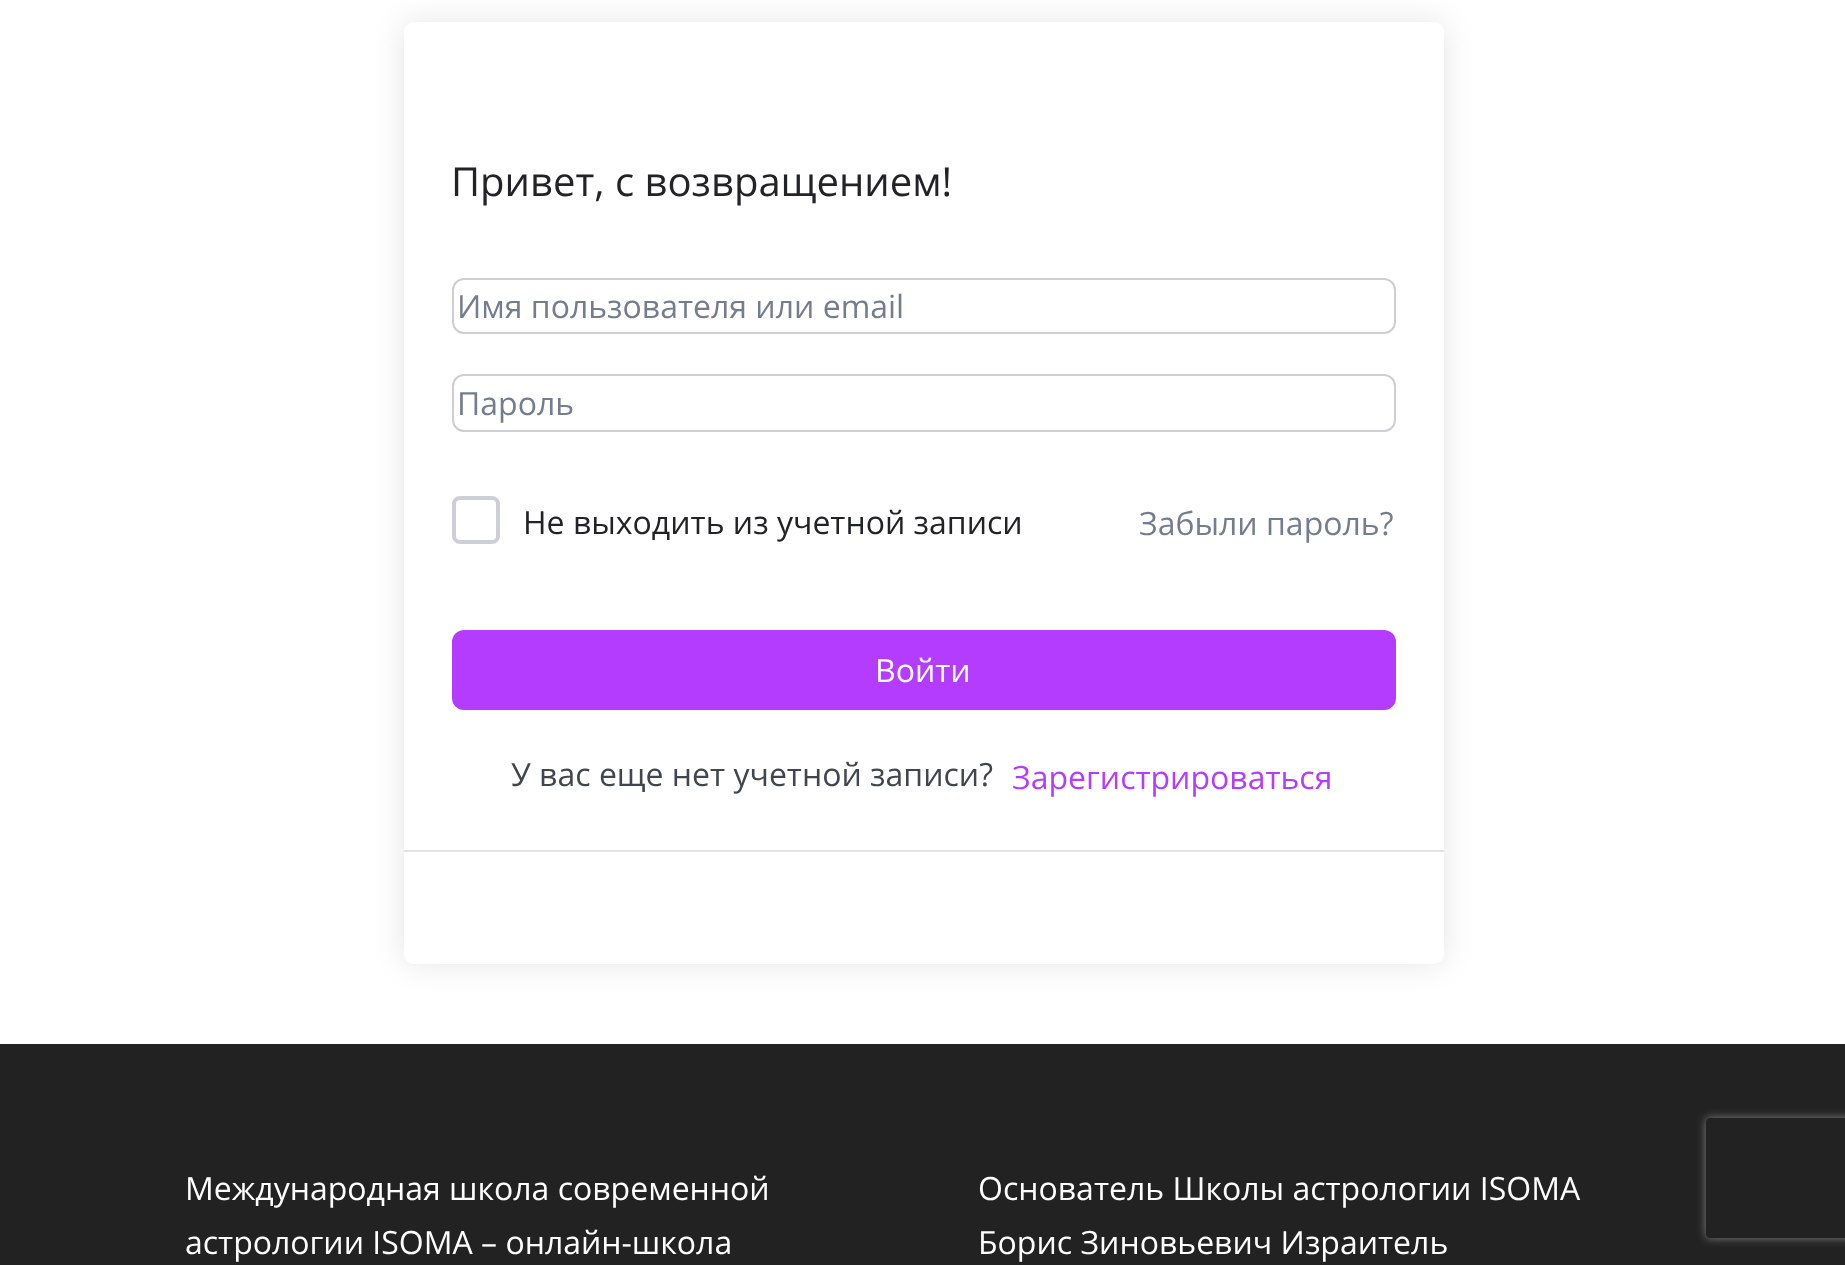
<?xml version="1.0" encoding="UTF-8"?>
<svg xmlns="http://www.w3.org/2000/svg" width="1845" height="1265">
    <defs>
        <clipPath id="clip1"><path d="M 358 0 H 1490 V 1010 H 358 Z M 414 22 H 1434 C 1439.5 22 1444 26.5 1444 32 V 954 C 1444 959.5 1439.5 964 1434 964 H 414 C 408.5 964 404 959.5 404 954 V 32 C 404 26.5 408.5 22 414 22 Z" clip-rule="evenodd"/></clipPath>
        <filter id="blur1" x="-50%" y="-200%" width="200%" height="500%"><feGaussianBlur stdDeviation="15"/></filter>
        <clipPath id="clip2"><path d="M 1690 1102 H 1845 V 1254 H 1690 Z M 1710 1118 H 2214 C 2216 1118 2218 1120 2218 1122 V 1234 C 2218 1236 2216 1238 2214 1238 H 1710 C 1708 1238 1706 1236 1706 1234 V 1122 C 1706 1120 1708 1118 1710 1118 Z" clip-rule="evenodd"/></clipPath>
        <filter id="blur2" x="-50%" y="-200%" width="200%" height="500%"><feGaussianBlur stdDeviation="5"/></filter>
    </defs>
    <rect width="100%" height="100%" fill="#FFFFFF"/>
    <g clip-path="url(#clip1)">
        <rect x="404" y="22" width="1040" height="942" rx="10" fill="#000000" fill-opacity="0.1" filter="url(#blur1)"/>
    </g>
    <text x="451" y="196" font-family="Open Sans" font-size="40" fill="#212327">Привет, с возвращением!</text>
    <rect x="453" y="279" width="942" height="54" rx="11" fill="none" stroke="#CDCFD5" stroke-width="2"/>
    <text x="457" y="318" font-family="Open Sans" font-size="32" fill="#757C8E">Имя пользователя или email</text>
    <rect x="453" y="375" width="942" height="56" rx="11" fill="none" stroke="#CDCFD5" stroke-width="2"/>
    <text x="457" y="415" font-family="Open Sans" font-size="32" fill="#757C8E">Пароль</text>
    <rect x="454" y="498" width="44" height="44" rx="6" fill="none" stroke="#CDCFD5" stroke-width="4"/>
    <text x="523" y="534" font-family="Open Sans" font-size="32" fill="#212327">Не выходить из учетной записи</text>
    <text x="1139" y="535" font-family="Open Sans" font-size="32" fill="#757C8E">Забыли пароль?</text>
    <rect x="453" y="631" width="942" height="78" rx="11" fill="#B43CFF" stroke="#B43CFF" stroke-width="2"/>
    <text x="875" y="682" font-family="Open Sans" font-size="32" fill="#FFFFFF">Войти</text>
    <text x="511" y="786" font-family="Open Sans" font-size="32" fill="#41454F">У вас еще нет учетной записи?</text>
    <text x="1012" y="789" font-family="Open Sans" font-size="32" fill="#B43CFF">Зарегистрироваться</text>
    <rect x="404" y="850" width="1040" height="2" fill="#E0E2EA"/>
    <rect x="0" y="1044" width="1845" height="221" fill="#222222"/>
    <text font-family="Open Sans" font-size="32" fill="#FFFFFF">
        <tspan x="185" y="1200">Международная школа современной</tspan>
        <tspan x="185" y="1254">астрологии ISOMA – онлайн-школа</tspan>
    </text>
    <text font-family="Open Sans" font-size="32" fill="#FFFFFF">
        <tspan x="978" y="1200">Основатель Школы астрологии ISOMA</tspan>
        <tspan x="978" y="1254">Борис Зиновьевич Израитель</tspan>
    </text>
    <g clip-path="url(#clip2)">
        <rect x="1706" y="1118" width="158" height="120" rx="4" fill="#808080" filter="url(#blur2)"/>
    </g>
</svg>
